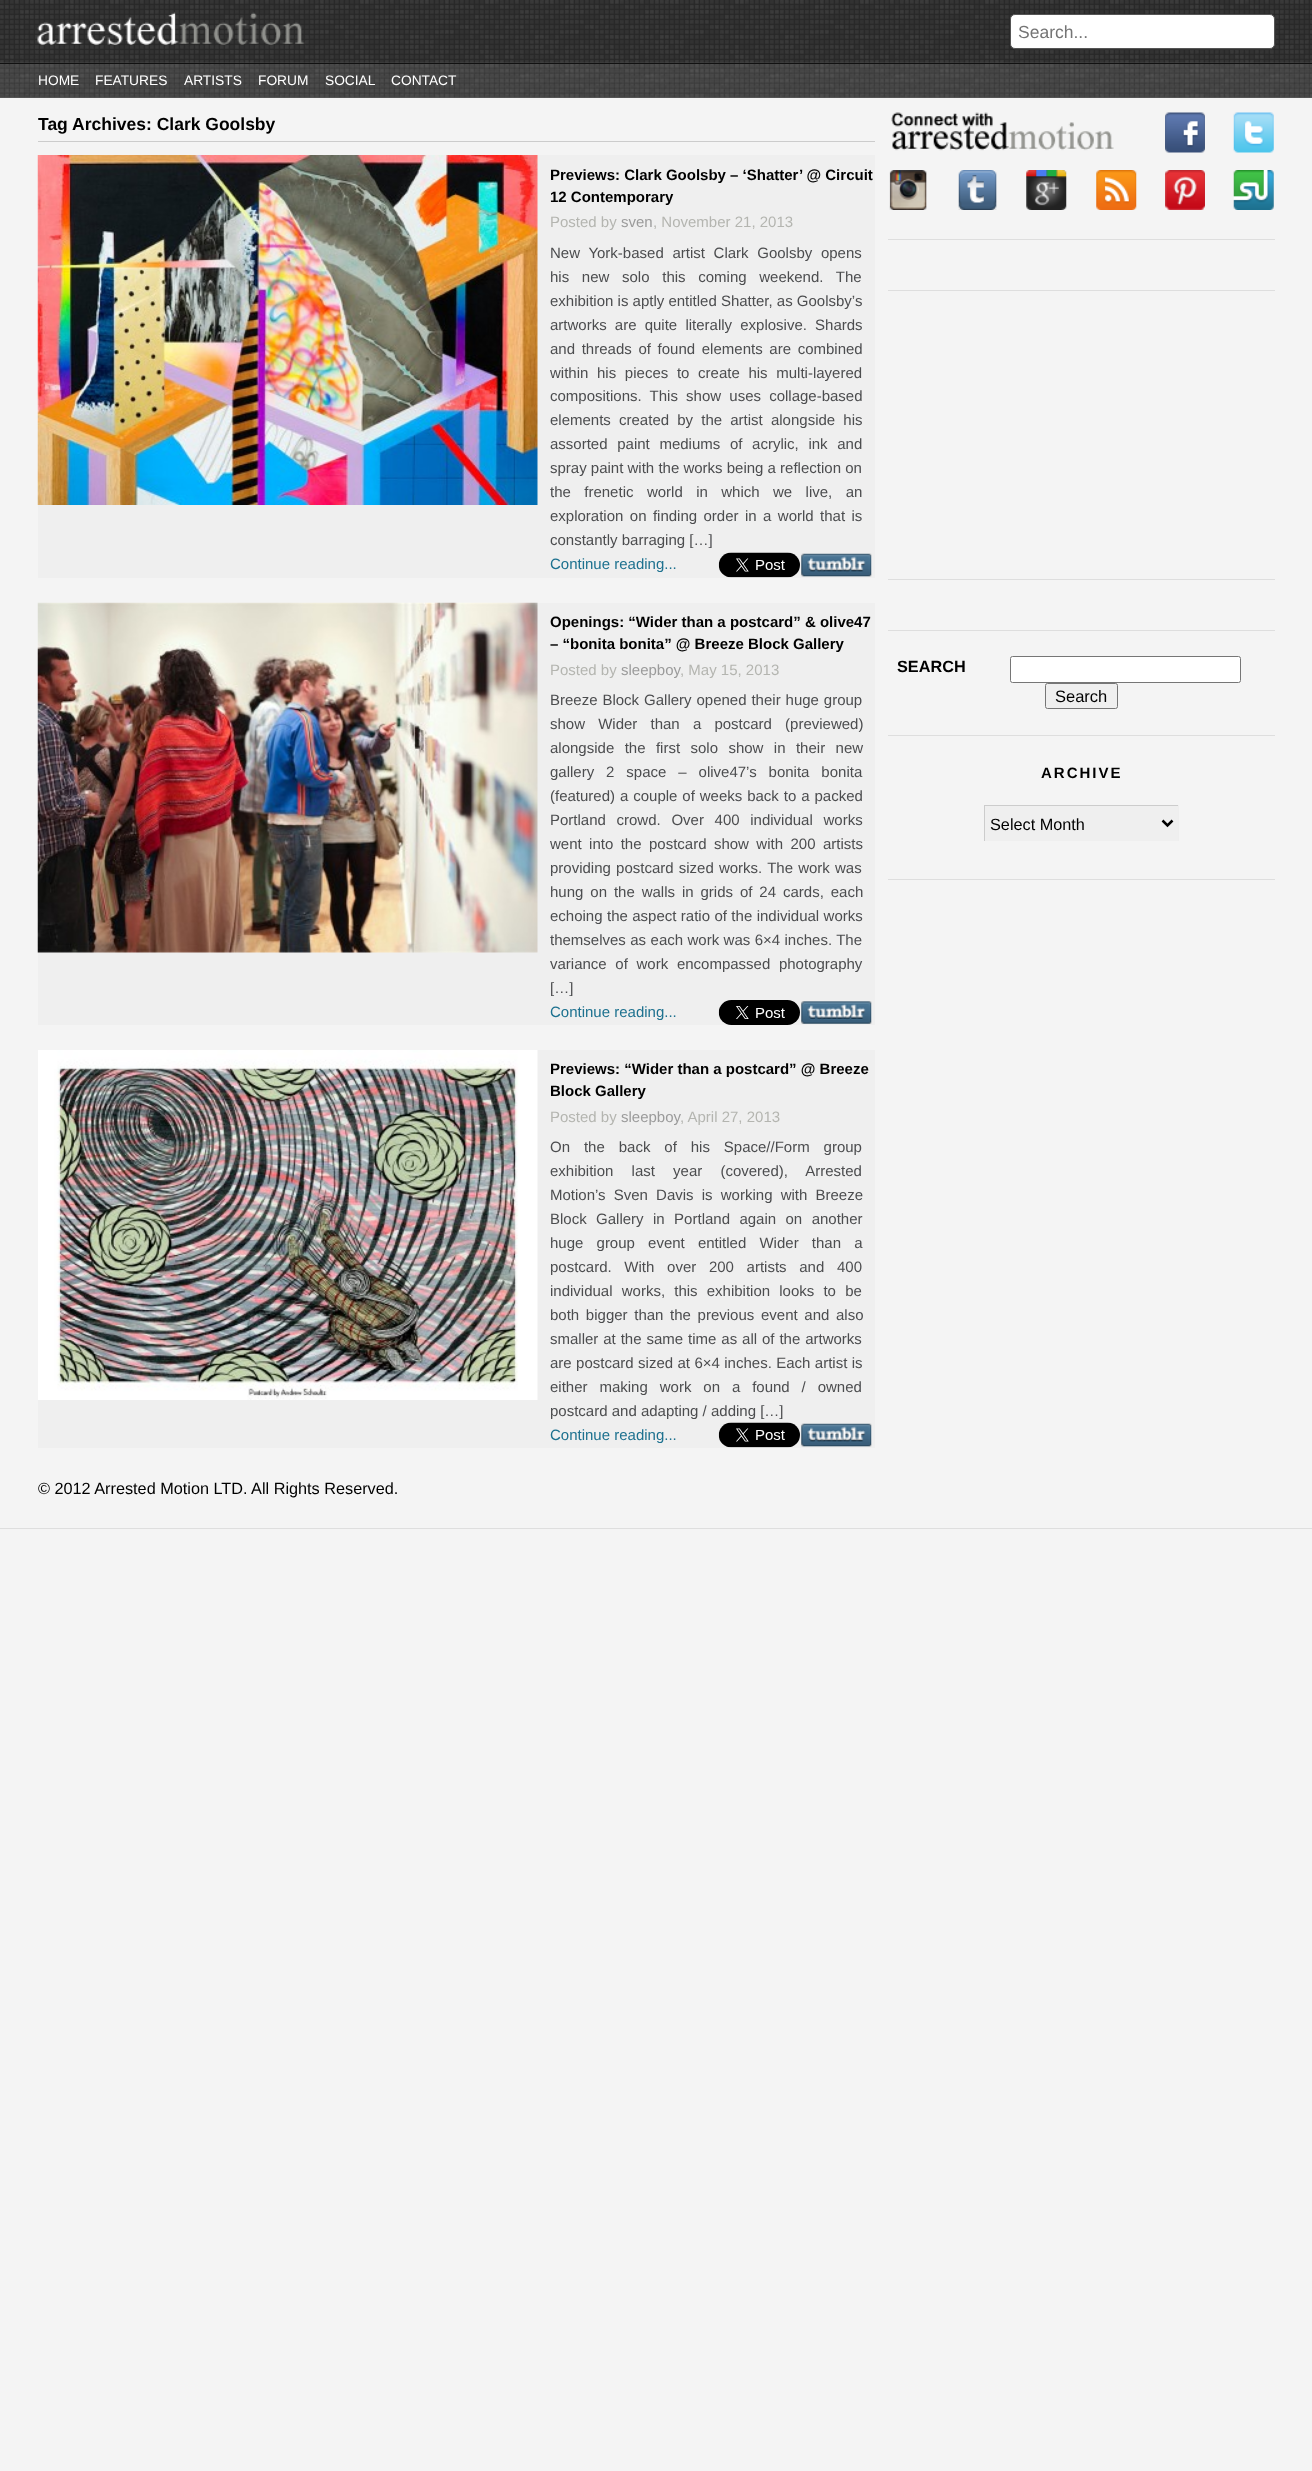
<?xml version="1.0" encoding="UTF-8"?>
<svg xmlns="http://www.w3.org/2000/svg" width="1312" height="2471">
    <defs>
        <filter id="blur1" x="-50%" y="-200%" width="200%" height="500%"><feGaussianBlur stdDeviation="0.5"/></filter>
    </defs>
    <rect width="100%" height="100%" fill="#F4F4F4"/>
    <image x="0" y="0" width="1312" height="63" href="img_01.png"/>
    <image x="37" y="12" width="268" height="33" href="img_02.png"/>
    <rect x="1011" y="15" width="265" height="35" rx="5" fill="#333333" filter="url(#blur1)"/>
    <rect x="1010.5" y="14.5" width="264" height="34" rx="4.5" fill="#FFFFFF" stroke="#555555"/>
    <text x="1018" y="38" font-family="Liberation Sans" font-size="17.5" fill="#757575">Search...</text>
    <rect x="0" y="97" width="1312" height="1" fill="#666666"/>
    <image x="0" y="62" width="1312" height="36" href="img_03.png"/>
    <rect x="0" y="63" width="1312" height="1" fill="#111111"/>
    <text x="38" y="85" font-family="Liberation Sans" font-size="13.75" fill="#FFFFFF">HOME</text>
    <text x="95" y="85" font-family="Liberation Sans" font-size="13.75" fill="#FFFFFF">FEATURES</text>
    <text x="184" y="85" font-family="Liberation Sans" font-size="13.75" fill="#FFFFFF">ARTISTS</text>
    <text x="258" y="85" font-family="Liberation Sans" font-size="13.75" fill="#FFFFFF">FORUM</text>
    <text x="325" y="85" font-family="Liberation Sans" font-size="13.75" fill="#FFFFFF">SOCIAL</text>
    <text x="391" y="85" font-family="Liberation Sans" font-size="13.75" fill="#FFFFFF">CONTACT</text>
    <rect x="38" y="141" width="837" height="1" fill="#CCCCCC"/>
    <text x="38" y="130" font-family="Liberation Sans" font-size="17.5" font-weight="700" fill="#000000">Tag Archives: Clark Goolsby</text>
    <rect x="38" y="155" width="837" height="423" fill="#EFEFEF"/>
    <image x="37" y="155" width="501" height="350" href="img_04.png"/>
    <text font-family="Liberation Sans" font-size="15" font-weight="700" fill="#000000">
        <tspan x="550" y="180">Previews: Clark Goolsby – ‘Shatter’ @ Circuit</tspan>
        <tspan x="550" y="202">12 Contemporary</tspan>
    </text>
    <text x="550" y="227" font-family="Liberation Sans" font-size="15" fill="#B4B5B0">Posted by</text>
    <text x="621" y="227" font-family="Liberation Sans" font-size="15" fill="#9B9B9B">sven</text>
    <text x="653" y="227" font-family="Liberation Sans" font-size="15" fill="#B4B5B0">, November 21, 2013</text>
    <text font-family="Liberation Sans" font-size="15" fill="#4C4D4F">
        <tspan x="550" y="258" word-spacing="4.5">New York-based artist Clark Goolsby opens</tspan>
        <tspan x="550" y="282" word-spacing="8.5">his new solo this coming weekend. The</tspan>
        <tspan x="550" y="306">exhibition is aptly entitled Shatter, as Goolsby’s</tspan>
        <tspan x="550" y="330" word-spacing="4">artworks are quite literally explosive. Shards</tspan>
        <tspan x="550" y="354" word-spacing="2.5">and threads of found elements are combined</tspan>
        <tspan x="550" y="378" word-spacing="4.5">within his pieces to create his multi-layered</tspan>
        <tspan x="550" y="401" word-spacing="4">compositions. This show uses collage-based</tspan>
        <tspan x="550" y="425" word-spacing="4">elements created by the artist alongside his</tspan>
        <tspan x="550" y="449" word-spacing="5.5">assorted paint mediums of acrylic, ink and</tspan>
        <tspan x="550" y="473">spray paint with the works being a reflection on</tspan>
        <tspan x="550" y="497" word-spacing="9.25">the frenetic world in which we live, an</tspan>
        <tspan x="550" y="521" word-spacing="2.25">exploration on finding order in a world that is</tspan>
        <tspan x="550" y="545">constantly barraging […]</tspan>
    </text>
    <text x="550" y="569" font-family="Liberation Sans" font-size="15" fill="#1D718F">Continue reading...</text>
    <image x="718" y="552" width="82" height="26" href="img_05.png"/>
    <image x="801" y="553" width="71" height="24" href="img_06.png"/>
    <rect x="38" y="603" width="837" height="422" fill="#EFEFEF"/>
    <image x="37" y="602" width="501" height="351" href="img_07.png"/>
    <text font-family="Liberation Sans" font-size="15" font-weight="700" fill="#000000">
        <tspan x="550" y="627">Openings: “Wider than a postcard” &amp; olive47</tspan>
        <tspan x="550" y="649">– “bonita bonita” @ Breeze Block Gallery</tspan>
    </text>
    <text x="550" y="675" font-family="Liberation Sans" font-size="15" fill="#B4B5B0">Posted by</text>
    <text x="621" y="675" font-family="Liberation Sans" font-size="15" fill="#9B9B9B">sleepboy</text>
    <text x="680" y="675" font-family="Liberation Sans" font-size="15" fill="#B4B5B0">, May 15, 2013</text>
    <text font-family="Liberation Sans" font-size="15" fill="#4C4D4F">
        <tspan x="550" y="705" word-spacing="0.75">Breeze Block Gallery opened their huge group</tspan>
        <tspan x="550" y="729" word-spacing="9">show Wider than a postcard (previewed)</tspan>
        <tspan x="550" y="753" word-spacing="6.25">alongside the first solo show in their new</tspan>
        <tspan x="550" y="777" word-spacing="7.75">gallery 2 space – olive47’s bonita bonita</tspan>
        <tspan x="550" y="801" word-spacing="0.75">(featured) a couple of weeks back to a packed</tspan>
        <tspan x="550" y="825" word-spacing="6.5">Portland crowd. Over 400 individual works</tspan>
        <tspan x="550" y="849" word-spacing="3.25">went into the postcard show with 200 artists</tspan>
        <tspan x="550" y="873" word-spacing="1">providing postcard sized works. The work was</tspan>
        <tspan x="550" y="897" word-spacing="2.75">hung on the walls in grids of 24 cards, each</tspan>
        <tspan x="550" y="921" word-spacing="0.25">echoing the aspect ratio of the individual works</tspan>
        <tspan x="550" y="945" word-spacing="0.25">themselves as each work was 6×4 inches. The</tspan>
        <tspan x="550" y="969" word-spacing="4.5">variance of work encompassed photography</tspan>
        <tspan x="550" y="993">[…]</tspan>
    </text>
    <text x="550" y="1017" font-family="Liberation Sans" font-size="15" fill="#1D718F">Continue reading...</text>
    <image x="718" y="1000" width="82" height="25" href="img_08.png"/>
    <image x="801" y="1001" width="71" height="23" href="img_09.png"/>
    <rect x="38" y="1050" width="837" height="398" fill="#EFEFEF"/>
    <image x="38" y="1050" width="500" height="350" href="img_10.png"/>
    <text font-family="Liberation Sans" font-size="15" font-weight="700" fill="#000000">
        <tspan x="550" y="1074">Previews: “Wider than a postcard” @ Breeze</tspan>
        <tspan x="550" y="1096">Block Gallery</tspan>
    </text>
    <text x="550" y="1122" font-family="Liberation Sans" font-size="15" fill="#B4B5B0">Posted by</text>
    <text x="621" y="1122" font-family="Liberation Sans" font-size="15" fill="#9B9B9B">sleepboy</text>
    <text x="680" y="1122" font-family="Liberation Sans" font-size="15" fill="#B4B5B0">, April 27, 2013</text>
    <text font-family="Liberation Sans" font-size="15" fill="#4C4D4F">
        <tspan x="550" y="1152" word-spacing="9.75">On the back of his Space//Form group</tspan>
        <tspan x="550" y="1176" word-spacing="14">exhibition last year (covered), Arrested</tspan>
        <tspan x="550" y="1200" word-spacing="4">Motion’s Sven Davis is working with Breeze</tspan>
        <tspan x="550" y="1224" word-spacing="5.25">Block Gallery in Portland again on another</tspan>
        <tspan x="550" y="1248" word-spacing="9">huge group event entitled Wider than a</tspan>
        <tspan x="550" y="1272" word-spacing="8.5">postcard. With over 200 artists and 400</tspan>
        <tspan x="550" y="1296" word-spacing="5">individual works, this exhibition looks to be</tspan>
        <tspan x="550" y="1320" word-spacing="2.5">both bigger than the previous event and also</tspan>
        <tspan x="550" y="1344" word-spacing="0.75">smaller at the same time as all of the artworks</tspan>
        <tspan x="550" y="1368" word-spacing="0.25">are postcard sized at 6×4 inches. Each artist is</tspan>
        <tspan x="550" y="1392" word-spacing="7.75">either making work on a found / owned</tspan>
        <tspan x="550" y="1416">postcard and adapting / adding […]</tspan>
    </text>
    <text x="550" y="1440" font-family="Liberation Sans" font-size="15" fill="#1D718F">Continue reading...</text>
    <image x="718" y="1422" width="82" height="26" href="img_05.png"/>
    <image x="801" y="1423" width="71" height="24" href="img_06.png"/>
    <rect x="888" y="239" width="387" height="1" fill="#DEDEDE"/>
    <image x="891" y="112" width="223" height="39" href="img_11.png"/>
    <image x="1165" y="112" width="40" height="41" href="img_12.png"/>
    <image x="1233" y="112" width="41" height="41" href="img_13.png"/>
    <image x="889" y="170" width="38" height="40" href="img_14.png"/>
    <image x="958" y="170" width="39" height="40" href="img_15.png"/>
    <image x="1026" y="170" width="41" height="40" href="img_16.png"/>
    <image x="1096" y="170" width="41" height="40" href="img_17.png"/>
    <image x="1165" y="170" width="40" height="40" href="img_18.png"/>
    <image x="1233" y="170" width="41" height="40" href="img_19.png"/>
    <rect x="888" y="290" width="387" height="1" fill="#DEDEDE"/>
    <rect x="888" y="579" width="387" height="1" fill="#DEDEDE"/>
    <rect x="888" y="630" width="387" height="1" fill="#DEDEDE"/>
    <rect x="888" y="735" width="387" height="1" fill="#DEDEDE"/>
    <text x="897" y="672" font-family="Liberation Sans" font-size="16.25" font-weight="700" fill="#000000">SEARCH</text>
    <rect x="1010.5" y="656.5" width="230" height="26" rx="2" fill="#FFFFFF" stroke="#767676"/>
    <rect x="1045.5" y="683.5" width="72" height="25" rx="2" fill="#EFEFEF" stroke="#767676"/>
    <text x="1055" y="702" font-family="Liberation Sans" font-size="16.5" fill="#000000">Search</text>
    <rect x="888" y="879" width="387" height="1" fill="#DEDEDE"/>
    <text x="1041" y="778" font-family="Liberation Sans" font-size="15" font-weight="700" letter-spacing="2" fill="#000000">ARCHIVE</text>
    <rect x="985" y="806" width="193" height="35" fill="#EFEFEF"/>
    <rect x="984" y="805" width="195" height="1" fill="#CCCCCC"/>
    <rect x="1178" y="805" width="1" height="36" fill="#EEEEEE"/>
    <rect x="984" y="805" width="1" height="36" fill="#CCCCCC"/>
    <path d="M 1162.5 820.5 L 1167.5 825.5 L 1172.5 820.5" fill="none" stroke="#000000" stroke-width="2.5"/>
    <text x="990" y="830" font-family="Liberation Sans" font-size="16.25" fill="#000000">Select Month</text>
    <text x="38" y="1494" font-family="Liberation Sans" font-size="16.25" fill="#000000">© 2012 Arrested Motion LTD. All Rights Reserved.</text>
    <rect x="0" y="1528" width="1312" height="1" fill="#DEDEDE"/>
</svg>
